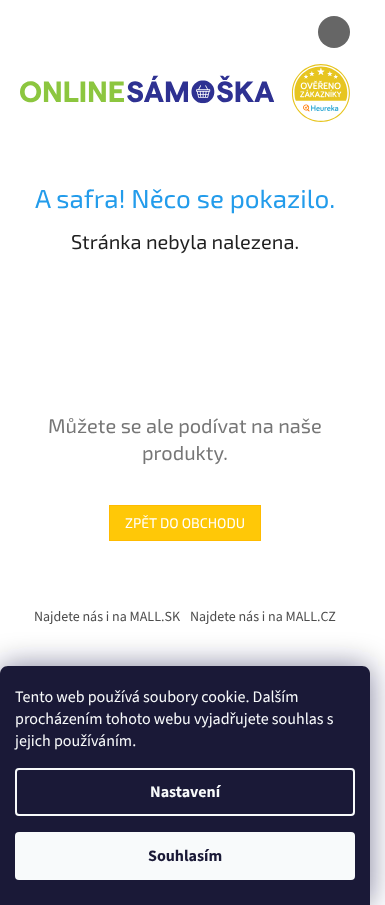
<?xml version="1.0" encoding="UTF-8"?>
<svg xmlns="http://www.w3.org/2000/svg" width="385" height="905">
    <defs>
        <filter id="blur1" x="-50%" y="-200%" width="200%" height="500%"><feGaussianBlur stdDeviation="15"/></filter>
    </defs>
    <rect width="100%" height="100%" fill="#FFFFFF"/>
    <circle cx="334" cy="32" r="16" fill="#666666"/>
    <image x="20" y="64" width="330" height="58" href="img_01.png"/>
    <text x="35" y="208" font-family="'Exo 2'" font-size="26" fill="#239CEB">A safra! Něco se pokazilo.</text>
    <text x="71" y="249" font-family="'Exo 2'" font-size="20" fill="#1F1F1F">Stránka nebyla nalezena.</text>
    <text x="48" y="433" font-family="'Exo 2'" font-size="20" fill="#767676">Můžete se ale podívat na naše</text>
    <text x="142" y="460" font-family="'Exo 2'" font-size="20" fill="#767676">produkty.</text>
    <rect x="109.5" y="505.5" width="151" height="35" fill="#FFC807" stroke="#FFBB00"/>
    <text x="125" y="528" font-family="'Exo 2'" font-size="14" fill="#FFFFFF">ZPĚT DO OBCHODU</text>
    <text x="34" y="621" font-family="'Source Sans 3'" font-size="14" fill="#4D4D4D">Najdete nás i na MALL.SK</text>
    <text x="190" y="621" font-family="'Source Sans 3'" font-size="14" fill="#4D4D4D">Najdete nás i na MALL.CZ</text>
    <rect x="0" y="666" width="370" height="239" rx="8" fill="#1B1939" fill-opacity="0.5" filter="url(#blur1)"/>
    <path d="M 8 666 H 362 C 366.5 666 370 669.5 370 674 V 905 H 0 V 674 C 0 669.5 3.5 666 8 666 Z" fill="#1A1937"/>
    <text font-family="'Source Sans 3'" font-size="16" fill="#F8FAFB">
        <tspan x="15" y="702">Tento web používá soubory cookie. Dalším</tspan>
        <tspan x="15" y="724">procházením tohoto webu vyjadřujete souhlas s</tspan>
        <tspan x="15" y="746">jejich používáním.</tspan>
    </text>
    <rect x="16" y="769" width="338" height="46" rx="3" fill="none" stroke="#F8FAFB" stroke-width="2"/>
    <text x="150" y="797" font-family="'Source Sans 3'" font-size="16" font-weight="700" fill="#F8FAFB">Nastavení</text>
    <rect x="15" y="832" width="340" height="48" rx="4" fill="#F8FAFB"/>
    <text x="148" y="861" font-family="'Source Sans 3'" font-size="16" font-weight="700" fill="#1A1937">Souhlasím</text>
</svg>
